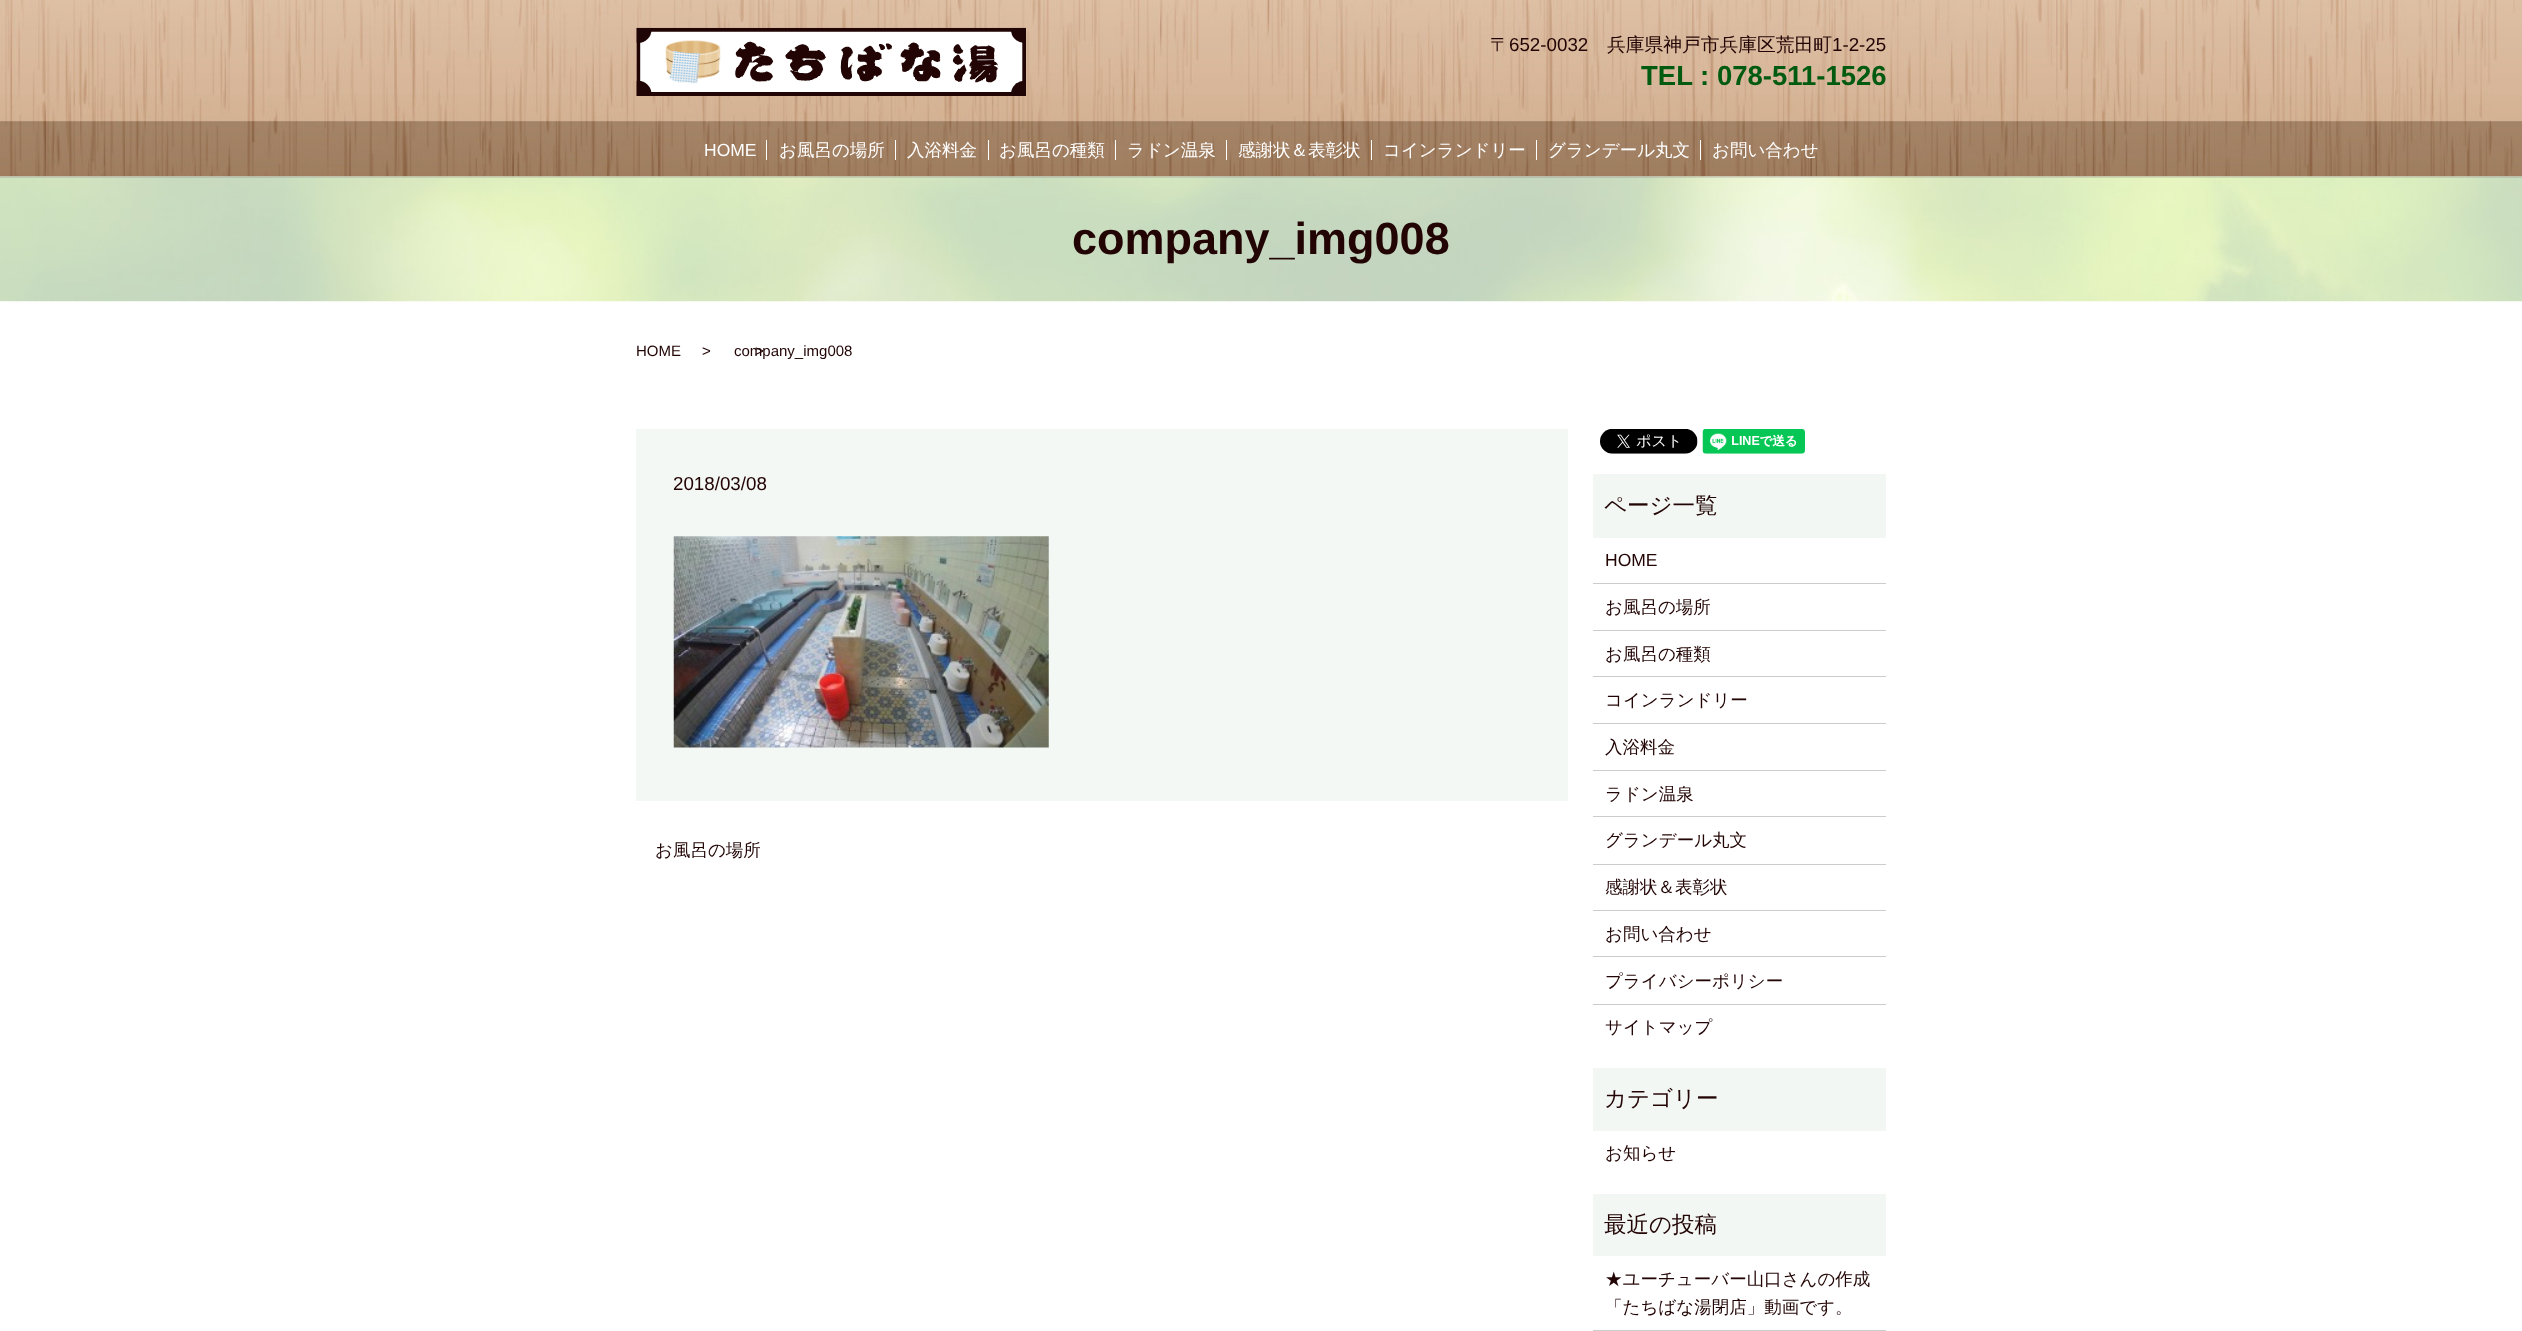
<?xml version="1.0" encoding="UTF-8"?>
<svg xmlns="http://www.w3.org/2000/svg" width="2522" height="1331">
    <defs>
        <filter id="blur1" x="-50%" y="-200%" width="200%" height="500%"><feGaussianBlur stdDeviation="0.5"/></filter>
    </defs>
    <rect width="100%" height="100%" fill="#FFFFFF"/>
    <image x="0" y="176" width="2522" height="126" href="img_03.png"/>
    <rect x="0" y="1" width="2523" height="177" fill="#000000" fill-opacity="0.1" filter="url(#blur1)"/>
    <image x="0" y="0" width="2522" height="177" href="img_01.png"/>
    <image x="636" y="27" width="390" height="69" href="img_02.png"/>
    <text x="1490" y="51" font-family="WenQuanYi Zen Hei" font-size="18.75" font-weight="500" fill="#220404">〒</text>
    <text x="1509" y="51" font-family="Liberation Sans" font-size="18.75" fill="#220404">652-0032</text>
    <text x="1607" y="51" font-family="WenQuanYi Zen Hei" font-size="18.75" font-weight="500" fill="#220404">兵庫県神戸市兵庫区荒田町</text>
    <text x="1832" y="51" font-family="Liberation Sans" font-size="18.75" fill="#220404">1-2-25</text>
    <text x="1641" y="85" font-family="Liberation Sans" font-size="27.5" font-weight="700" fill="#005A0F">TEL : 078-511-1526</text>
    <rect x="766" y="140" width="1" height="20" fill="#FFFFFF"/>
    <text x="704" y="156" font-family="Liberation Sans" font-size="17.5" fill="#FFFFFF">HOME</text>
    <rect x="895" y="140" width="1" height="20" fill="#FFFFFF"/>
    <text x="779" y="156" font-family="WenQuanYi Zen Hei" font-size="17.5" font-weight="500" fill="#FFFFFF">お風呂の場所</text>
    <rect x="988" y="140" width="1" height="20" fill="#FFFFFF"/>
    <text x="907" y="156" font-family="WenQuanYi Zen Hei" font-size="17.5" font-weight="500" fill="#FFFFFF">入浴料金</text>
    <rect x="1115" y="140" width="1" height="20" fill="#FFFFFF"/>
    <text x="999" y="156" font-family="WenQuanYi Zen Hei" font-size="17.5" font-weight="500" fill="#FFFFFF">お風呂の種類</text>
    <rect x="1226" y="140" width="1" height="20" fill="#FFFFFF"/>
    <text x="1127" y="156" font-family="WenQuanYi Zen Hei" font-size="17.5" font-weight="500" fill="#FFFFFF">ラドン温泉</text>
    <rect x="1371" y="140" width="1" height="20" fill="#FFFFFF"/>
    <text x="1238" y="156" font-family="WenQuanYi Zen Hei" font-size="17.5" font-weight="500" fill="#FFFFFF">感謝状＆表彰状</text>
    <rect x="1536" y="140" width="1" height="20" fill="#FFFFFF"/>
    <text x="1383" y="156" font-family="WenQuanYi Zen Hei" font-size="17.5" font-weight="500" fill="#FFFFFF">コインランドリー</text>
    <rect x="1700" y="140" width="1" height="20" fill="#FFFFFF"/>
    <text x="1548" y="156" font-family="WenQuanYi Zen Hei" font-size="17.5" font-weight="500" fill="#FFFFFF">グランデール丸文</text>
    <text x="1712" y="156" font-family="WenQuanYi Zen Hei" font-size="17.5" font-weight="500" fill="#FFFFFF">お問い合わせ</text>
    <text x="1072" y="254" font-family="Liberation Sans" font-size="45" font-weight="700" fill="#220404">company_img008</text>
    <text x="636" y="356" font-family="Liberation Sans" font-size="15" fill="#220404">HOME</text>
    <text x="702" y="356" font-family="Liberation Sans" font-size="15" fill="#220404">&gt;</text>
    <text x="755" y="356" font-family="Liberation Sans" font-size="15" fill="#220404">&gt;</text>
    <text x="734" y="356" font-family="Liberation Sans" font-size="15" fill="#220404">company_img008</text>
    <rect x="636" y="429" width="932" height="372" fill="#F3F8F4"/>
    <text x="673" y="490" font-family="Liberation Sans" font-size="18.75" fill="#220404">2018/03/08</text>
    <image x="673" y="536" width="376" height="212" href="img_04.png"/>
    <text x="655" y="856" font-family="WenQuanYi Zen Hei" font-size="17.5" font-weight="500" fill="#220404">お風呂の場所</text>
    <image x="1600" y="429" width="98" height="25" href="img_05.png"/>
    <image x="1702" y="429" width="103" height="25" href="img_06.png"/>
    <rect x="1593" y="474" width="293" height="64" fill="#F2F7F3"/>
    <text x="1604" y="513" font-family="WenQuanYi Zen Hei" font-size="22.5" font-weight="500" fill="#220404">ページ一覧</text>
    <rect x="1593" y="583" width="293" height="1" fill="#CCCCCC"/>
    <text x="1605" y="566" font-family="Liberation Sans" font-size="17.5" fill="#220404">HOME</text>
    <rect x="1593" y="630" width="293" height="1" fill="#CCCCCC"/>
    <text x="1605" y="613" font-family="WenQuanYi Zen Hei" font-size="17.5" font-weight="500" fill="#220404">お風呂の場所</text>
    <rect x="1593" y="676" width="293" height="1" fill="#CCCCCC"/>
    <text x="1605" y="660" font-family="WenQuanYi Zen Hei" font-size="17.5" font-weight="500" fill="#220404">お風呂の種類</text>
    <rect x="1593" y="723" width="293" height="1" fill="#CCCCCC"/>
    <text x="1605" y="706" font-family="WenQuanYi Zen Hei" font-size="17.5" font-weight="500" fill="#220404">コインランドリー</text>
    <rect x="1593" y="770" width="293" height="1" fill="#CCCCCC"/>
    <text x="1605" y="753" font-family="WenQuanYi Zen Hei" font-size="17.5" font-weight="500" fill="#220404">入浴料金</text>
    <rect x="1593" y="816" width="293" height="1" fill="#CCCCCC"/>
    <text x="1605" y="800" font-family="WenQuanYi Zen Hei" font-size="17.5" font-weight="500" fill="#220404">ラドン温泉</text>
    <rect x="1593" y="864" width="293" height="1" fill="#CCCCCC"/>
    <text x="1605" y="846" font-family="WenQuanYi Zen Hei" font-size="17.5" font-weight="500" fill="#220404">グランデール丸文</text>
    <rect x="1593" y="910" width="293" height="1" fill="#CCCCCC"/>
    <text x="1605" y="893" font-family="WenQuanYi Zen Hei" font-size="17.5" font-weight="500" fill="#220404">感謝状＆表彰状</text>
    <rect x="1593" y="956" width="293" height="1" fill="#CCCCCC"/>
    <text x="1605" y="940" font-family="WenQuanYi Zen Hei" font-size="17.5" font-weight="500" fill="#220404">お問い合わせ</text>
    <rect x="1593" y="1004" width="293" height="1" fill="#CCCCCC"/>
    <text x="1605" y="987" font-family="WenQuanYi Zen Hei" font-size="17.5" font-weight="500" fill="#220404">プライバシーポリシー</text>
    <text x="1605" y="1033" font-family="WenQuanYi Zen Hei" font-size="17.5" font-weight="500" fill="#220404">サイトマップ</text>
    <rect x="1593" y="1068" width="293" height="63" fill="#F2F7F3"/>
    <text x="1604" y="1106" font-family="WenQuanYi Zen Hei" font-size="22.5" font-weight="500" fill="#220404">カテゴリー</text>
    <text x="1605" y="1159" font-family="WenQuanYi Zen Hei" font-size="17.5" font-weight="500" fill="#220404">お知らせ</text>
    <rect x="1593" y="1194" width="293" height="62" fill="#F2F7F3"/>
    <text x="1604" y="1232" font-family="WenQuanYi Zen Hei" font-size="22.5" font-weight="500" fill="#220404">最近の投稿</text>
    <rect x="1593" y="1330" width="293" height="1" fill="#CCCCCC"/>
    <text font-family="WenQuanYi Zen Hei" font-size="17.5" font-weight="500" fill="#220404">
        <tspan x="1605" y="1285">★ユーチューバー山口さんの作成</tspan>
        <tspan x="1605" y="1313">「たちばな湯閉店」動画です。</tspan>
    </text>
</svg>
